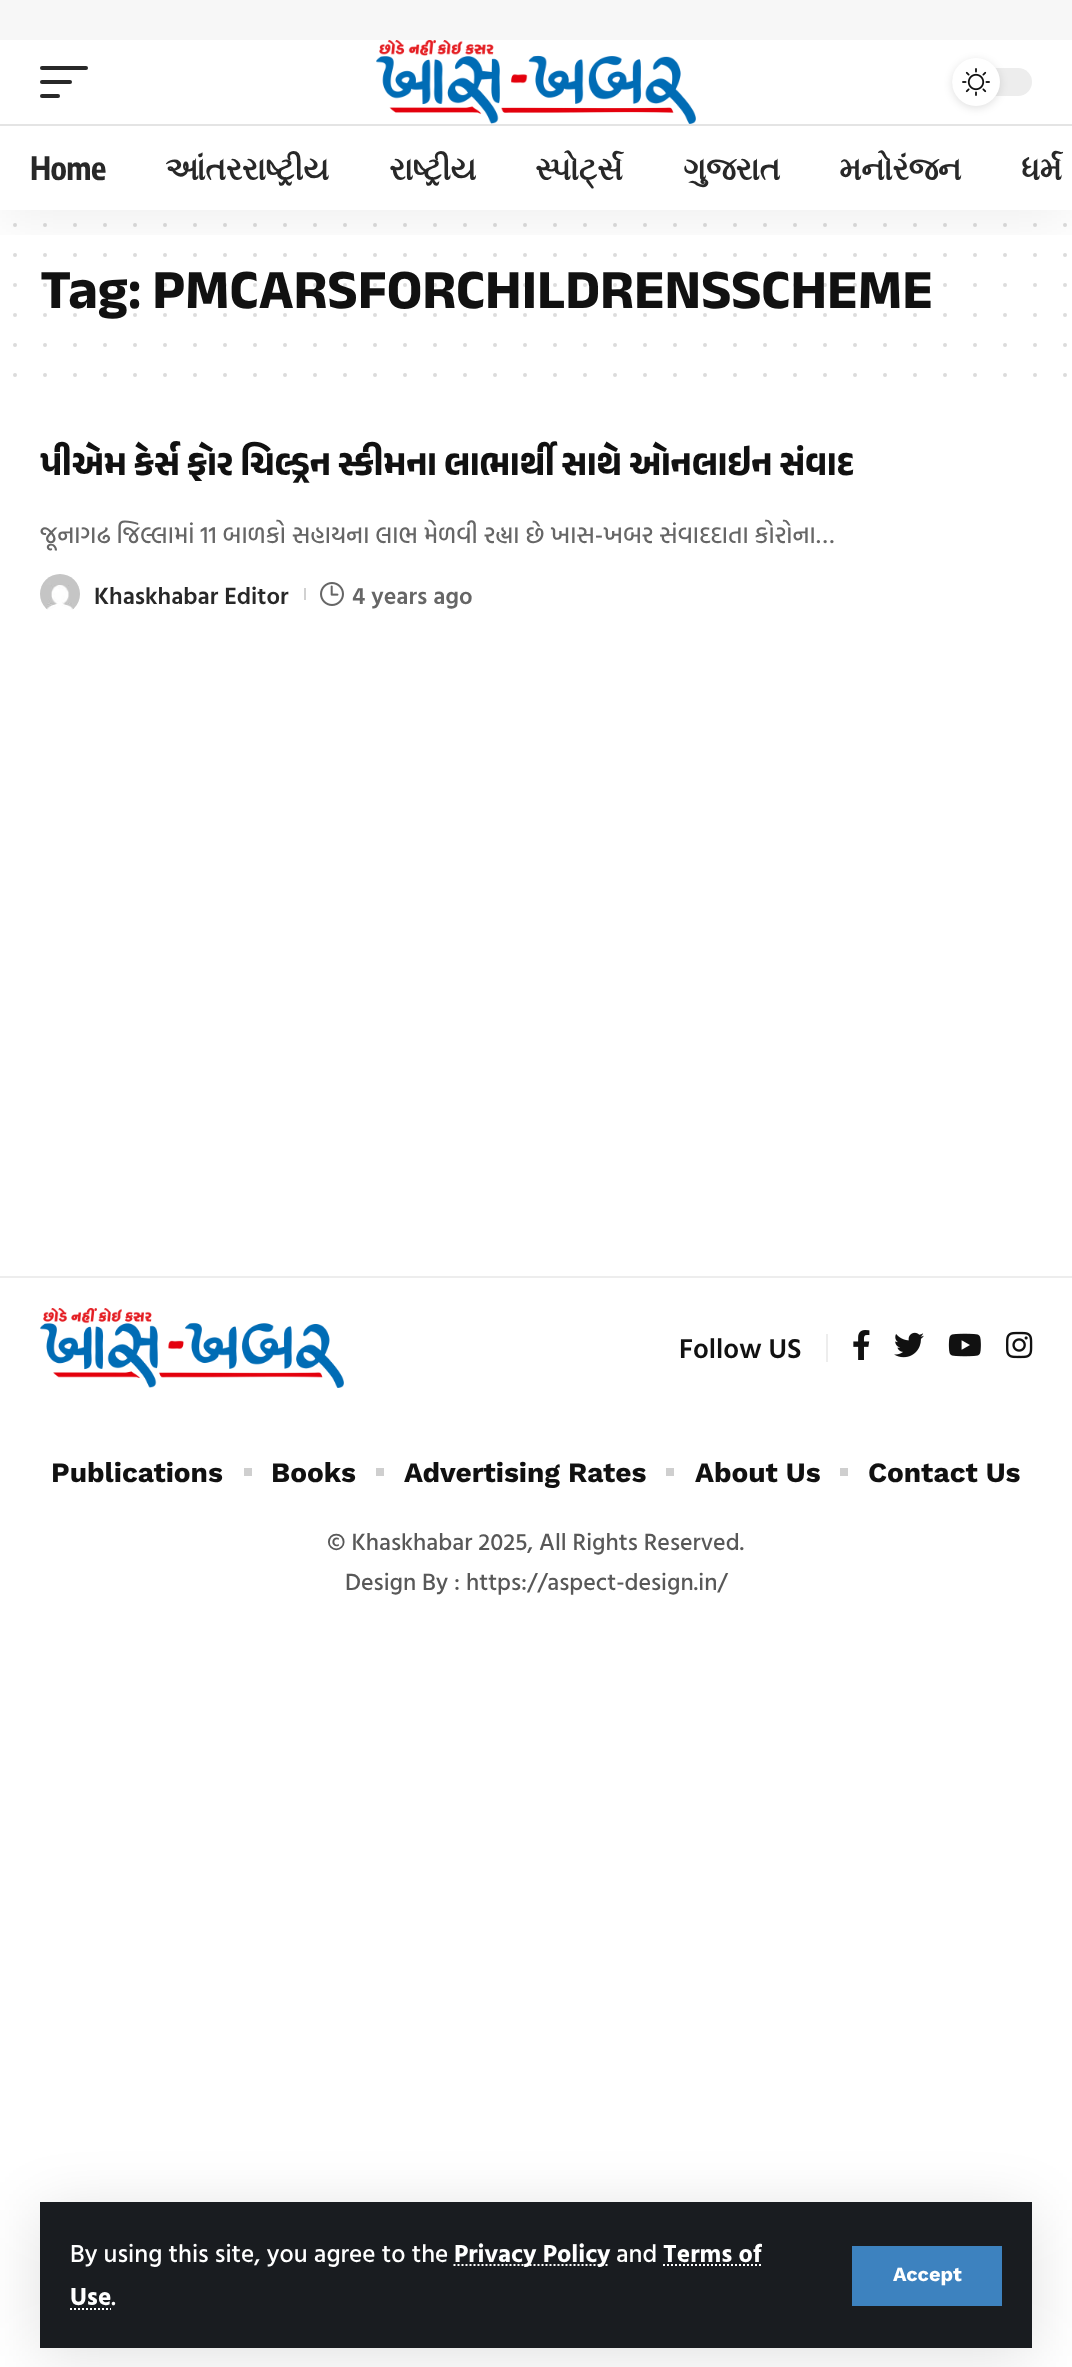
<?xml version="1.0" encoding="UTF-8"?>
<svg xmlns="http://www.w3.org/2000/svg" width="1072" height="2367">
    <defs>
        <clipPath id="clip1"><rect x="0" y="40" width="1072" height="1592"/></clipPath>
        <clipPath id="clip2"><rect x="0" y="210" width="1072" height="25"/></clipPath>
        <filter id="blur1" x="-50%" y="-200%" width="200%" height="500%"><feGaussianBlur stdDeviation="30"/></filter>
        <filter id="blur2" x="-50%" y="-200%" width="200%" height="500%"><feGaussianBlur stdDeviation="4"/></filter>
    </defs>
    <rect width="100%" height="100%" fill="#FFFFFF"/>
    <rect x="0" y="0" width="1072" height="40" fill="#F7F7F7"/>
    <path d="M 15 225 H 1065.4" fill="none" stroke="#DBDBDB" stroke-width="4" stroke-linecap="round" stroke-dasharray="0 30"/>
    <path d="M 15 255 H 1065.4" fill="none" stroke="#DBDBDB" stroke-width="4" stroke-linecap="round" stroke-dasharray="0 30"/>
    <text x="40" y="308" font-family="Anek Gujarati" font-size="56" font-weight="500" fill="#111111">Tag: PMCARSFORCHILDRENSSCHEME</text>
    <path d="M 15 285 H 1065.4" fill="none" stroke="#111111" stroke-opacity="0.15" stroke-width="4" stroke-linecap="round" stroke-dasharray="0 30"/>
    <g clip-path="url(#clip1)">
        <g clip-path="url(#clip2)">
            <rect x="0" y="48" width="1072" height="170" fill="#000000" fill-opacity="0.07" filter="url(#blur1)"/>
        </g>
    </g>
    <rect x="40" y="66" width="48" height="4" rx="2" fill="#282828"/>
    <rect x="40" y="80" width="32" height="4" rx="2" fill="#282828"/>
    <rect x="40" y="94" width="20" height="4" rx="2" fill="#282828"/>
    <image x="376" y="40" width="320" height="84" href="img_01.png"/>
    <rect x="952" y="68" width="80" height="28" rx="14" fill="#EDEDED"/>
    <rect x="952" y="60" width="48" height="48" rx="24" fill="#000000" fill-opacity="0.12" filter="url(#blur2)"/>
    <circle cx="976" cy="82" r="24" fill="#FFFFFF"/>
    <image x="962" y="68" width="28" height="28" href="img_02.png"/>
    <rect x="0" y="124" width="1072" height="2" fill="#E4E4E4"/>
    <text x="30" y="180" font-family="Encode Sans Condensed" font-size="32" font-weight="700" letter-spacing="-0.6" fill="#282828">Home</text>
    <text x="165" y="180" font-family="FreeSerif" font-size="32" font-weight="700" letter-spacing="-0.6" fill="#282828">આંતરરાષ્ટ્રીય</text>
    <text x="389" y="180" font-family="FreeSerif" font-size="32" font-weight="700" letter-spacing="-0.6" fill="#282828">રાષ્ટ્રીય</text>
    <text x="535" y="180" font-family="FreeSerif" font-size="32" font-weight="700" letter-spacing="-0.6" fill="#282828">સ્પોર્ટ્સ</text>
    <text x="683" y="180" font-family="FreeSerif" font-size="32" font-weight="700" letter-spacing="-0.6" fill="#282828">ગુજરાત</text>
    <text x="839" y="180" font-family="FreeSerif" font-size="32" font-weight="700" letter-spacing="-0.6" fill="#282828">મનોરંજન</text>
    <text x="1021" y="180" font-family="FreeSerif" font-size="32" font-weight="700" letter-spacing="-0.6" fill="#282828">ધર્મ</text>
    <rect x="40" y="2210" width="992" height="146" fill="#000000" fill-opacity="0.12" filter="url(#blur1)"/>
    <rect x="40" y="2202" width="992" height="146" fill="#191C20"/>
    <text x="70" y="2262" font-family="Hind Vadodara" font-size="25.25" font-weight="500" fill="#FFFFFF">By using this site, you agree to the</text>
    <path d="M 453.5 2265 H 609.5" fill="none" stroke="#FFFFFF" stroke-width="2" stroke-dasharray="2 2"/>
    <text x="454" y="2262" font-family="Hind Vadodara" font-size="25.25" font-weight="700" fill="#FFFFFF">Privacy Policy</text>
    <text x="616" y="2262" font-family="Hind Vadodara" font-size="25.25" font-weight="500" fill="#FFFFFF">and</text>
    <text x="663" y="2262" font-family="Hind Vadodara" font-size="25.25" font-weight="700" fill="#FFFFFF">Terms of</text>
    <path d="M 663 2265 H 761.5" fill="none" stroke="#FFFFFF" stroke-width="2" stroke-dasharray="2 2"/>
    <text x="70" y="2305" font-family="Hind Vadodara" font-size="25.25" font-weight="700" fill="#FFFFFF">Use</text>
    <path d="M 70 2309 H 111" fill="none" stroke="#FFFFFF" stroke-width="2" stroke-dasharray="2 2"/>
    <text x="111" y="2305" font-family="Hind Vadodara" font-size="25.25" font-weight="500" fill="#FFFFFF">.</text>
    <rect x="852" y="2246" width="150" height="60" fill="#3D82BF"/>
    <text x="893" y="2281" font-family="Work Sans" font-size="20" font-weight="700" fill="#FFFFFF">Accept</text>
    <path d="M 15 315 H 1065.4" fill="none" stroke="#111111" stroke-opacity="0.15" stroke-width="4" stroke-linecap="round" stroke-dasharray="0 30"/>
    <path d="M 15 345 H 1065.4" fill="none" stroke="#DBDBDB" stroke-width="4" stroke-linecap="round" stroke-dasharray="0 30"/>
    <path d="M 15 375 H 1065.4" fill="none" stroke="#DBDBDB" stroke-width="4" stroke-linecap="round" stroke-dasharray="0 30"/>
    <text x="40" y="475" font-family="Anek Gujarati" font-size="36" font-weight="500" fill="#111111">પીએમ કેર્સ ફોર ચિલ્ડ્રન સ્કીમના લાભાર્થી સાથે ઓનલાઇન સંવાદ</text>
    <text x="40" y="543" font-family="Hind Vadodara" font-size="24" font-weight="500" fill="#666666">જૂનાગઢ જિલ્લામાં 11 બાળકો સહાયના લાભ મેળવી રહ્યા છે ખાસ-ખબર સંવાદદાતા કોરોના…</text>
    <image x="40" y="574" width="40" height="36" href="img_03.png"/>
    <text x="94" y="604" font-family="Hind Vadodara" font-size="24" font-weight="600" fill="#282828">Khaskhabar Editor</text>
    <rect x="304" y="588" width="2" height="12" fill="#D1D1D1"/>
    <image x="320" y="582" width="24" height="24" href="img_04.png"/>
    <text x="352" y="604" font-family="Hind Vadodara" font-size="24" font-weight="600" fill="#666666">4 years ago</text>
    <rect x="0" y="1276" width="1072" height="2" fill="#EDEDED"/>
    <image x="40" y="1308" width="304" height="80" href="img_05.png"/>
    <rect x="826" y="1334" width="2" height="28" fill="#EDEDED"/>
    <text x="679" y="1358" font-family="Hind Vadodara" font-size="28" font-weight="600" fill="#111111">Follow US</text>
    <image x="853" y="1330" width="17" height="30" href="img_06.png"/>
    <image x="894" y="1332" width="30" height="26" href="img_07.png"/>
    <image x="948" y="1333" width="33" height="24" href="img_08.png"/>
    <image x="1006" y="1331" width="27" height="28" href="img_09.png"/>
    <text x="51" y="1482" font-family="Work Sans" font-size="28" font-weight="700" fill="#111111">Publications</text>
    <rect x="244" y="1468" width="8" height="8" fill="#CFCFCF"/>
    <text x="271" y="1482" font-family="Work Sans" font-size="28" font-weight="700" fill="#111111">Books</text>
    <rect x="376" y="1468" width="8" height="8" fill="#CFCFCF"/>
    <text x="404" y="1482" font-family="Work Sans" font-size="28" font-weight="700" fill="#111111">Advertising Rates</text>
    <rect x="666" y="1468" width="8" height="8" fill="#CFCFCF"/>
    <text x="695" y="1482" font-family="Work Sans" font-size="28" font-weight="700" fill="#111111">About Us</text>
    <rect x="840" y="1468" width="8" height="8" fill="#CFCFCF"/>
    <text x="868" y="1482" font-family="Work Sans" font-size="28" font-weight="700" fill="#111111">Contact Us</text>
    <text x="327" y="1550" font-family="Hind Vadodara" font-size="24" font-weight="500" fill="#585858">© Khaskhabar 2025, All Rights Reserved.</text>
    <text x="345" y="1590" font-family="Hind Vadodara" font-size="24" font-weight="500" fill="#585858">Design By : https://aspect-design.in/</text>
</svg>
